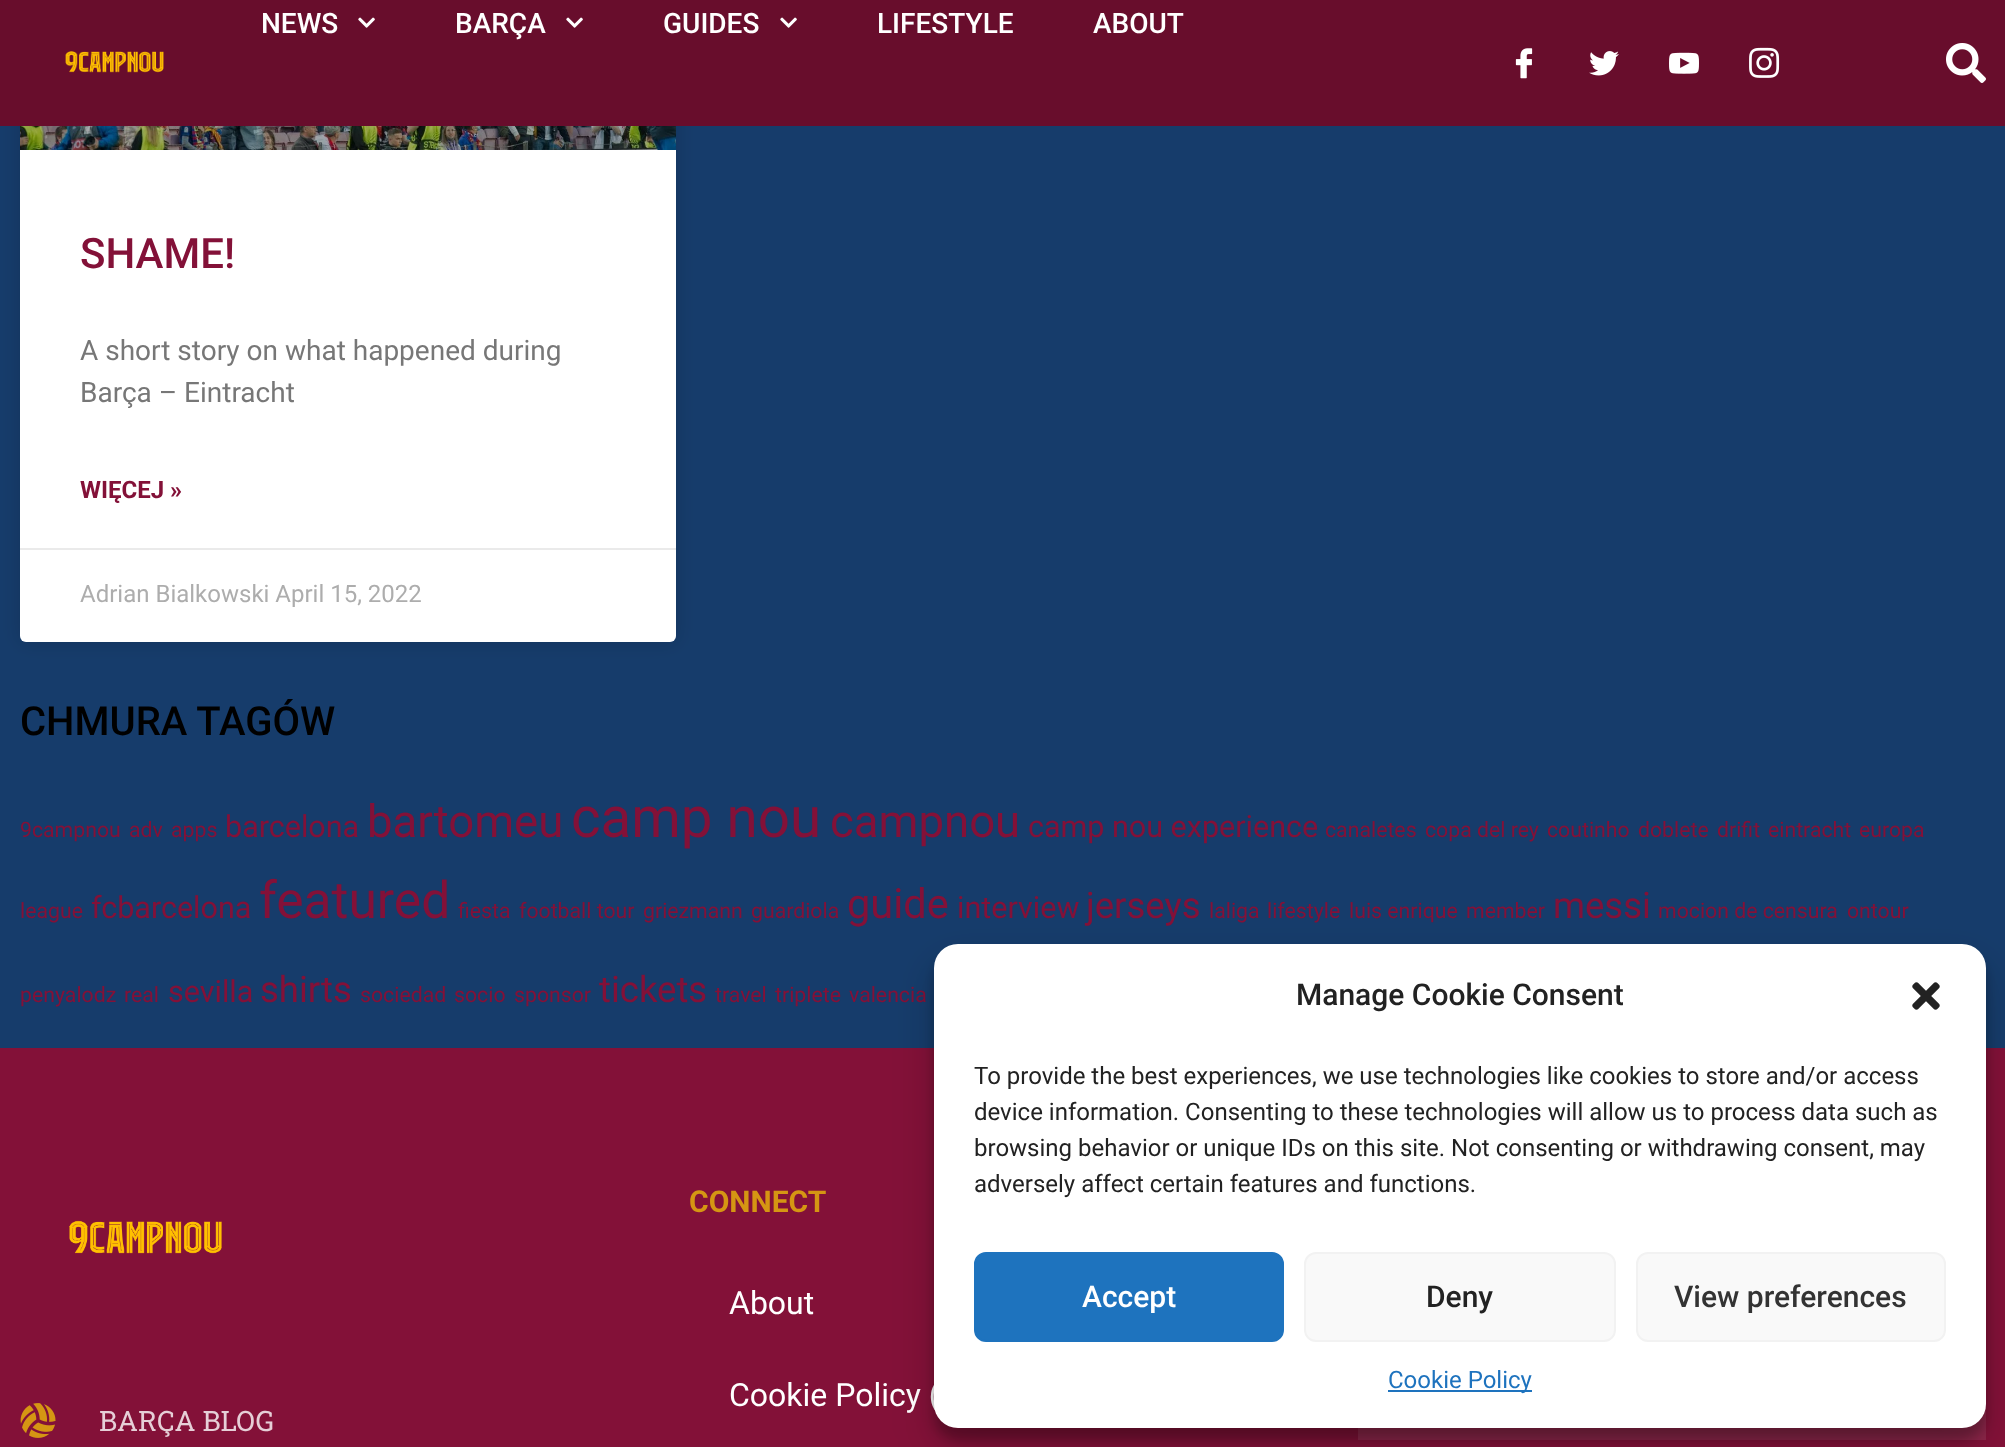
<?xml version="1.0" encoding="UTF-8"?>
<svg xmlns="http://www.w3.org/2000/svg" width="2005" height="1447">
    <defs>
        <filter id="blur1" x="-50%" y="-200%" width="200%" height="500%"><feGaussianBlur stdDeviation="10"/></filter>
        <filter id="blur2" x="-50%" y="-200%" width="200%" height="500%"><feGaussianBlur stdDeviation="6"/></filter>
        <filter id="blur3" x="-50%" y="-200%" width="200%" height="500%"><feGaussianBlur stdDeviation="20"/></filter>
    </defs>
    <rect width="100%" height="100%" fill="#163C6B"/>
    <rect x="20" y="-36" width="656" height="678" rx="6" fill="#000000" fill-opacity="0.15" filter="url(#blur1)"/>
    <rect x="20" y="-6" width="656" height="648" rx="6" fill="#FFFFFF"/>
    <rect x="0" y="0" width="2005" height="126" fill="#680D2C"/>
    <text x="261" y="33" font-family="Roboto" font-size="28" font-weight="500" fill="#FFFFFF">NEWS</text>
    <image x="358" y="17" width="17" height="11" href="img_01.png"/>
    <text x="455" y="33" font-family="Roboto" font-size="28" font-weight="500" fill="#FFFFFF">BARÇA</text>
    <image x="566" y="17" width="17" height="11" href="img_01.png"/>
    <text x="663" y="33" font-family="Roboto" font-size="28" font-weight="500" fill="#FFFFFF">GUIDES</text>
    <image x="780" y="17" width="17" height="11" href="img_01.png"/>
    <text x="877" y="33" font-family="Roboto" font-size="28" font-weight="500" fill="#FFFFFF">LIFESTYLE</text>
    <text x="1093" y="33" font-family="Roboto" font-size="28" font-weight="500" fill="#FFFFFF">ABOUT</text>
    <image x="65" y="51" width="99" height="22" href="img_02.png"/>
    <image x="1515" y="48" width="18" height="31" href="img_03.png"/>
    <image x="1589" y="51" width="30" height="25" href="img_04.png"/>
    <image x="1669" y="52" width="30" height="22" href="img_05.png"/>
    <image x="1749" y="47" width="31" height="31" href="img_06.png"/>
    <image x="1946" y="43" width="40" height="40" href="img_07.png"/>
    <image x="20" y="126" width="656" height="24" href="img_08.png"/>
    <text x="80" y="268" font-family="Roboto" font-size="42" font-weight="500" fill="#831138">SHAME!</text>
    <text font-family="Roboto" font-size="28" fill="#777777">
        <tspan x="80" y="360">A short story on what happened during</tspan>
        <tspan x="80" y="402">Barça – Eintracht</tspan>
    </text>
    <text x="80" y="498" font-family="Roboto" font-size="24" font-weight="700" fill="#831138">WIĘCEJ »</text>
    <rect x="20" y="548" width="656" height="2" fill="#EAEAEA"/>
    <text x="80" y="602" font-family="Roboto" font-size="24" fill="#ADADAD">Adrian Bialkowski April 15, 2022</text>
    <text x="20" y="735" font-family="Roboto" font-size="40" font-weight="500" fill="#000000">CHMURA TAGÓW</text>
    <text x="20" y="837" font-family="Roboto" font-size="21.25" fill="#831138">9campnou</text>
    <text x="129" y="837" font-family="Roboto" font-size="21.25" fill="#831138">adv</text>
    <text x="171" y="837" font-family="Roboto" font-size="21.25" fill="#831138">apps</text>
    <text x="225" y="837" font-family="Roboto" font-size="30.5" fill="#831138">barcelona</text>
    <text x="367" y="837" font-family="Roboto" font-size="45.5" fill="#831138">bartomeu</text>
    <text x="571" y="837" font-family="Roboto" font-size="56.5" fill="#831138">camp nou</text>
    <text x="830" y="837" font-family="Roboto" font-size="45.5" fill="#831138">campnou</text>
    <text x="1028" y="837" font-family="Roboto" font-size="30.5" fill="#831138">camp nou experience</text>
    <text x="1325" y="837" font-family="Roboto" font-size="21.25" fill="#831138">canaletes</text>
    <text x="1425" y="837" font-family="Roboto" font-size="21.25" fill="#831138">copa del rey</text>
    <text x="1547" y="837" font-family="Roboto" font-size="21.25" fill="#831138">coutinho</text>
    <text x="1638" y="837" font-family="Roboto" font-size="21.25" fill="#831138">doblete</text>
    <text x="1717" y="837" font-family="Roboto" font-size="21.25" fill="#831138">drifit</text>
    <text x="1768" y="837" font-family="Roboto" font-size="21.25" fill="#831138">eintracht</text>
    <text x="1859" y="837" font-family="Roboto" font-size="21.25" fill="#831138">europa</text>
    <text x="20" y="918" font-family="Roboto" font-size="21.25" fill="#831138">league</text>
    <text x="91" y="918" font-family="Roboto" font-size="30.5" fill="#831138">fcbarcelona</text>
    <text x="259" y="918" font-family="Roboto" font-size="51.5" fill="#831138">featured</text>
    <text x="458" y="918" font-family="Roboto" font-size="21.25" fill="#831138">fiesta</text>
    <text x="519" y="918" font-family="Roboto" font-size="21.25" fill="#831138">football tour</text>
    <text x="643" y="918" font-family="Roboto" font-size="21.25" fill="#831138">griezmann</text>
    <text x="751" y="918" font-family="Roboto" font-size="21.25" fill="#831138">guardiola</text>
    <text x="847" y="918" font-family="Roboto" font-size="41.5" fill="#831138">guide</text>
    <text x="957" y="918" font-family="Roboto" font-size="30.5" fill="#831138">interview</text>
    <text x="1086" y="918" font-family="Roboto" font-size="36.5" fill="#831138">jerseys</text>
    <text x="1209" y="918" font-family="Roboto" font-size="21.25" fill="#831138">laliga</text>
    <text x="1267" y="918" font-family="Roboto" font-size="21.25" fill="#831138">lifestyle</text>
    <text x="1349" y="918" font-family="Roboto" font-size="21.25" fill="#831138">luis enrique</text>
    <text x="1466" y="918" font-family="Roboto" font-size="21.25" fill="#831138">member</text>
    <text x="1553" y="918" font-family="Roboto" font-size="36.5" fill="#831138">messi</text>
    <text x="1658" y="918" font-family="Roboto" font-size="21.25" fill="#831138">mocion de censura</text>
    <text x="1847" y="918" font-family="Roboto" font-size="21.25" fill="#831138">ontour</text>
    <text x="20" y="1002" font-family="Roboto" font-size="21.25" fill="#831138">penyalodz</text>
    <text x="124" y="1002" font-family="Roboto" font-size="21.25" fill="#831138">real</text>
    <text x="168" y="1002" font-family="Roboto" font-size="30.5" fill="#831138">sevilla</text>
    <text x="260" y="1002" font-family="Roboto" font-size="36.5" fill="#831138">shirts</text>
    <text x="360" y="1002" font-family="Roboto" font-size="21.25" fill="#831138">sociedad</text>
    <text x="454" y="1002" font-family="Roboto" font-size="21.25" fill="#831138">socio</text>
    <text x="514" y="1002" font-family="Roboto" font-size="21.25" fill="#831138">sponsor</text>
    <text x="599" y="1002" font-family="Roboto" font-size="36.5" fill="#831138">tickets</text>
    <text x="715" y="1002" font-family="Roboto" font-size="21.25" fill="#831138">travel</text>
    <text x="775" y="1002" font-family="Roboto" font-size="21.25" fill="#831138">triplete</text>
    <text x="849" y="1002" font-family="Roboto" font-size="21.25" fill="#831138">valencia</text>
    <rect x="0" y="1048" width="2005" height="399" fill="#831138"/>
    <text x="689" y="1212" font-family="Roboto" font-size="30" font-weight="700" fill="#D59613">CONNECT</text>
    <text x="729" y="1314" font-family="Roboto" font-size="32" fill="#FFFFFF">About</text>
    <text x="729" y="1406" font-family="Roboto" font-size="32" fill="#FFFFFF">Cookie Policy (</text>
    <image x="69" y="1220" width="153" height="34" href="img_09.png"/>
    <image x="20" y="1403" width="36" height="35" href="img_10.png"/>
    <text x="99" y="1431" font-family="Roboto Slab" font-size="28" fill="#E6CFD7">BARÇA BLOG</text>
    <rect x="1358" y="1404" width="628" height="36" fill="#8E264A"/>
    <rect x="934" y="956" width="1052" height="484" rx="24" fill="#000000" fill-opacity="0.23" filter="url(#blur2)"/>
    <rect x="934" y="964" width="1052" height="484" rx="24" fill="#000000" fill-opacity="0.19" filter="url(#blur3)"/>
    <rect x="934" y="944" width="1052" height="484" rx="24" fill="#FFFFFF"/>
    <text x="1296" y="1005" font-family="Roboto" font-size="30" font-weight="500" fill="#222222">Manage Cookie Consent</text>
    <image x="1912" y="982" width="28" height="28" href="img_11.png"/>
    <text font-family="Roboto" font-size="24" fill="#222222">
        <tspan x="974" y="1084">To provide the best experiences, we use technologies like cookies to store and/or access</tspan>
        <tspan x="974" y="1120">device information. Consenting to these technologies will allow us to process data such as</tspan>
        <tspan x="974" y="1156">browsing behavior or unique IDs on this site. Not consenting or withdrawing consent, may</tspan>
        <tspan x="974" y="1192">adversely affect certain features and functions.</tspan>
    </text>
    <rect x="975" y="1253" width="308" height="88" rx="11" fill="#1E73BE" stroke="#1E73BE" stroke-width="2"/>
    <text x="1082" y="1307" font-family="Roboto" font-size="30" font-weight="500" fill="#FFFFFF">Accept</text>
    <rect x="1305" y="1253" width="310" height="88" rx="11" fill="#F9F9F9" stroke="#F2F2F2" stroke-width="2"/>
    <text x="1426" y="1307" font-family="Roboto" font-size="30" font-weight="500" fill="#222222">Deny</text>
    <rect x="1637" y="1253" width="308" height="88" rx="11" fill="#F9F9F9" stroke="#F2F2F2" stroke-width="2"/>
    <text x="1674" y="1307" font-family="Roboto" font-size="30" font-weight="500" fill="#333333">View preferences</text>
    <rect x="1388" y="1390" width="144" height="2" fill="#1E73BE"/>
    <text x="1388" y="1388" font-family="Roboto" font-size="24" fill="#1E73BE">Cookie Policy</text>
</svg>
